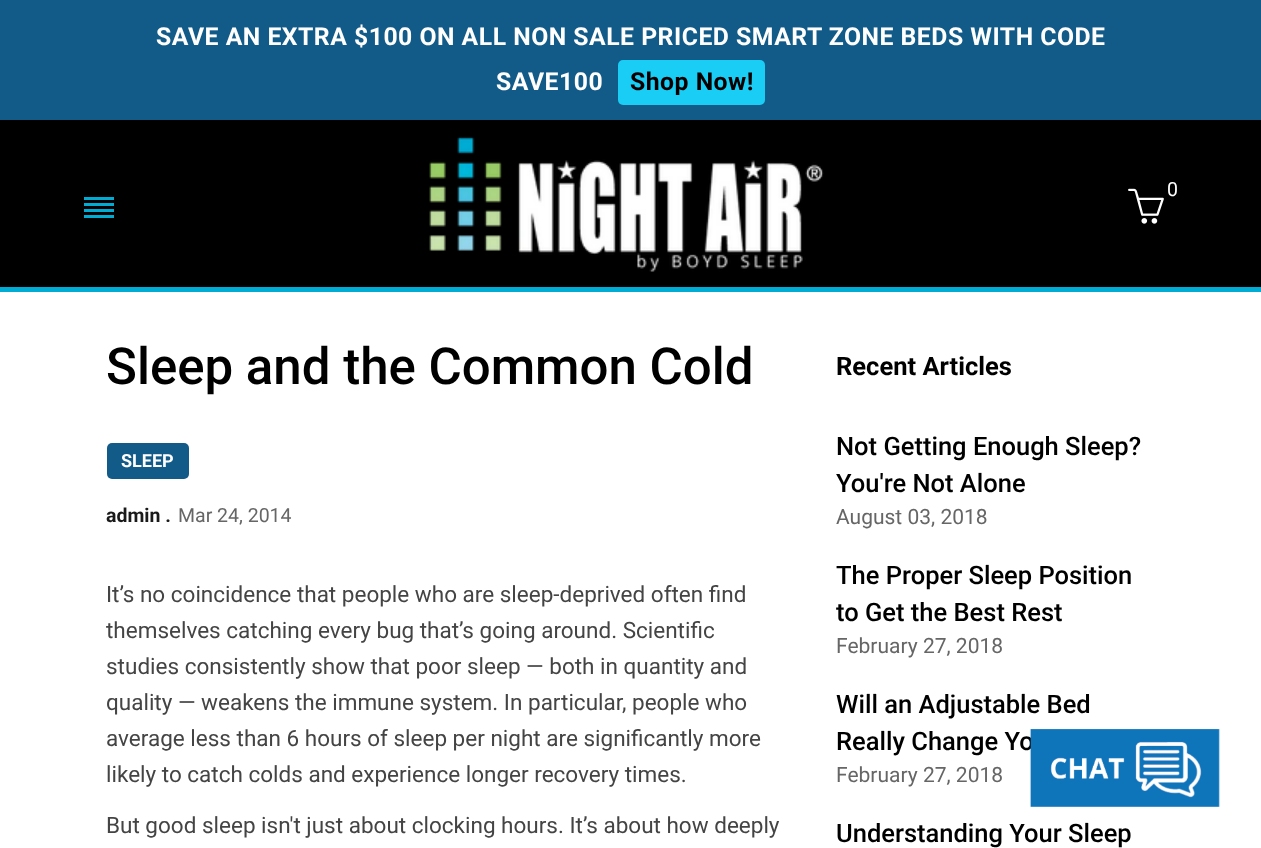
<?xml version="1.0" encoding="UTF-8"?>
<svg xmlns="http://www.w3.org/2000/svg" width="1261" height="848">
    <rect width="100%" height="100%" fill="#FFFFFF"/>
    <rect x="0" y="0" width="1261" height="120" fill="#125B88"/>
    <text x="156" y="45" font-family="Roboto" font-size="24.75" font-weight="700" letter-spacing="0.5" fill="#FFFFFF">SAVE AN EXTRA $100 ON ALL NON SALE PRICED SMART ZONE BEDS WITH CODE</text>
    <text x="496" y="90" font-family="Roboto" font-size="24.75" font-weight="700" letter-spacing="0.5" fill="#FFFFFF">SAVE100</text>
    <rect x="618" y="60" width="147" height="45" rx="5" fill="#19CDF5"/>
    <text x="630" y="90" font-family="Roboto" font-size="24.75" font-weight="700" letter-spacing="0.5" fill="#000000">Shop Now!</text>
    <rect x="0" y="120" width="1261" height="167" fill="#000000"/>
    <rect x="0" y="287" width="1261" height="5" fill="#00ACD4"/>
    <image x="429" y="136" width="395" height="136" href="img_01.png"/>
    <image x="1128" y="188" width="36" height="36" href="img_02.png"/>
    <text x="1167" y="196" font-family="Roboto" font-size="19.5" fill="#FFFFFF">0</text>
    <rect x="84" y="197" width="30" height="3" fill="#00ACD4"/>
    <rect x="84" y="203" width="30" height="3" fill="#00ACD4"/>
    <rect x="84" y="209" width="30" height="3" fill="#00ACD4"/>
    <rect x="84" y="215" width="30" height="3" fill="#00ACD4"/>
    <text x="106" y="384" font-family="Roboto" font-size="51" font-weight="500" fill="#000000">Sleep and the Common Cold</text>
    <rect x="107" y="443" width="82" height="36" rx="5" fill="#125B88"/>
    <text x="121" y="467" font-family="Roboto" font-size="18" font-weight="700" fill="#FFFFFF">SLEEP</text>
    <text x="106" y="522" font-family="Roboto" font-size="19.5" font-weight="700" fill="#1A1A1A">admin .</text>
    <text x="178" y="522" font-family="Roboto" font-size="19.5" fill="#666666">Mar 24, 2014</text>
    <text font-family="Roboto" font-size="22.5" fill="#444444">
        <tspan x="106" y="602">It’s no coincidence that people who are sleep-deprived often find</tspan>
        <tspan x="106" y="638">themselves catching every bug that’s going around. Scientific</tspan>
        <tspan x="106" y="674">studies consistently show that poor sleep — both in quantity and</tspan>
        <tspan x="106" y="710">quality — weakens the immune system. In particular, people who</tspan>
        <tspan x="106" y="746">average less than 6 hours of sleep per night are significantly more</tspan>
        <tspan x="106" y="782">likely to catch colds and experience longer recovery times.</tspan>
    </text>
    <text x="106" y="833" font-family="Roboto" font-size="22.5" fill="#444444">But good sleep isn't just about clocking hours. It’s about how deeply</text>
    <text x="836" y="375" font-family="Roboto" font-size="25.5" font-weight="700" fill="#000000">Recent Articles</text>
    <text font-family="Roboto" font-size="25.5" font-weight="500" fill="#000000">
        <tspan x="836" y="455">Not Getting Enough Sleep?</tspan>
        <tspan x="836" y="492">You're Not Alone</tspan>
    </text>
    <text x="836" y="524" font-family="Roboto" font-size="21" fill="#666666">August 03, 2018</text>
    <text font-family="Roboto" font-size="25.5" font-weight="500" fill="#000000">
        <tspan x="836" y="584">The Proper Sleep Position</tspan>
        <tspan x="836" y="621">to Get the Best Rest</tspan>
    </text>
    <text x="836" y="653" font-family="Roboto" font-size="21" fill="#666666">February 27, 2018</text>
    <text font-family="Roboto" font-size="25.5" font-weight="500" fill="#000000">
        <tspan x="836" y="713">Will an Adjustable Bed</tspan>
        <tspan x="836" y="750">Really Change Yo</tspan>
    </text>
    <text x="836" y="782" font-family="Roboto" font-size="21" fill="#666666">February 27, 2018</text>
    <text x="836" y="842" font-family="Roboto" font-size="25.5" font-weight="500" fill="#000000">Understanding Your Sleep</text>
    <image x="1030" y="729" width="190" height="78" href="img_03.png"/>
</svg>
